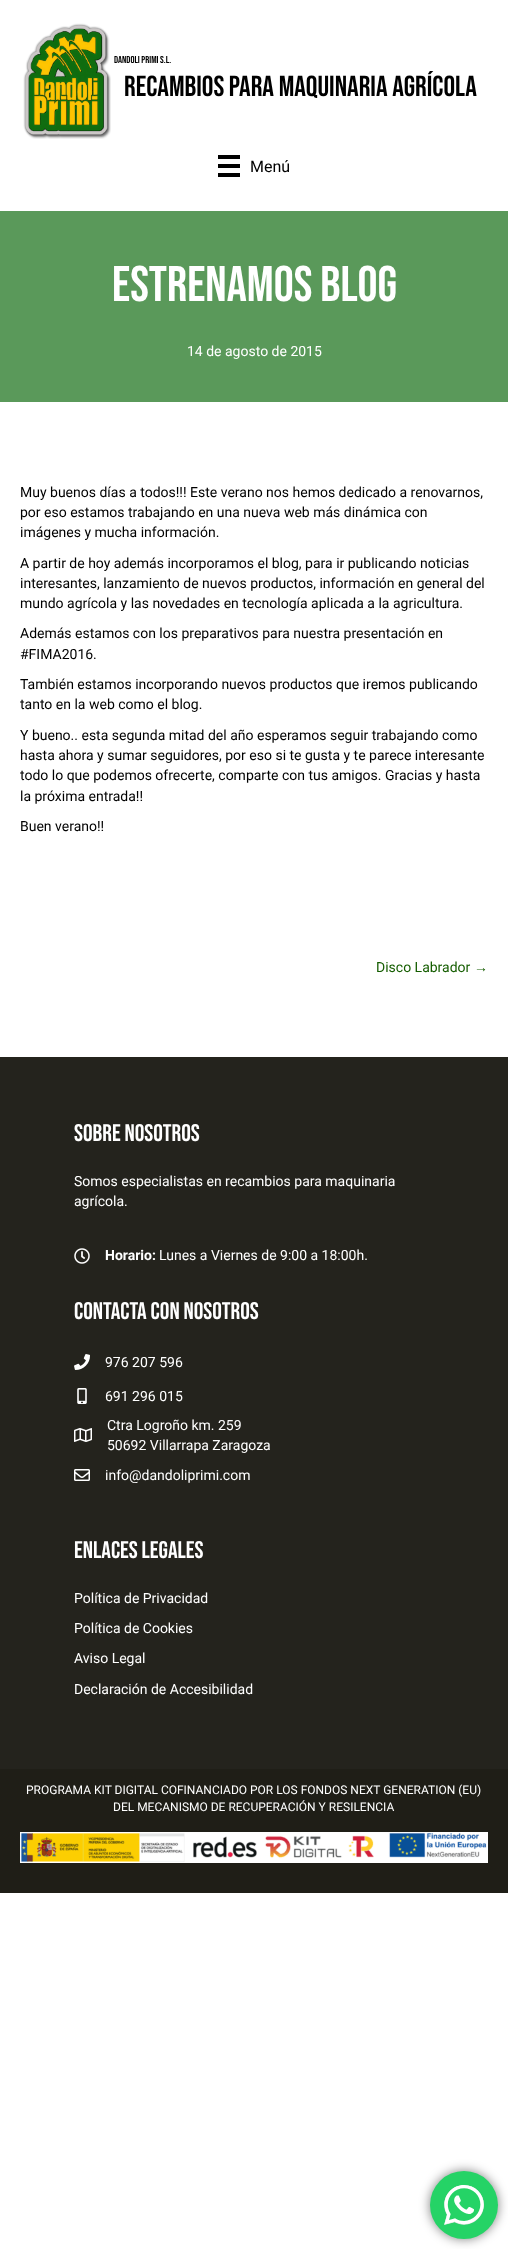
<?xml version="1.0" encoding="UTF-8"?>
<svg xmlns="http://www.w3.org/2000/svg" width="508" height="2249">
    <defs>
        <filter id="blur1" x="-50%" y="-200%" width="200%" height="500%"><feGaussianBlur stdDeviation="5.5"/></filter>
    </defs>
    <rect width="100%" height="100%" fill="#FFFFFF"/>
    <image x="23" y="23" width="88" height="116" href="img_01.png"/>
    <text x="114" y="63" font-family="Bebas Neue" font-size="10" fill="#000000">Dandoli Primi S.L.</text>
    <text x="124" y="96" font-family="Bebas Neue" font-size="29" fill="#000000">Recambios para Maquinaria Agrícola</text>
    <rect x="218" y="155" width="22" height="4" fill="#000000"/>
    <rect x="218" y="164" width="22" height="4" fill="#000000"/>
    <rect x="218" y="173" width="22" height="4" fill="#000000"/>
    <text x="250" y="172" font-family="Roboto" font-size="16" fill="#000000">Menú</text>
    <rect x="0" y="211" width="508" height="191" fill="#5A995A"/>
    <text x="112" y="301" font-family="Bebas Neue" font-size="50" fill="#FFFFFF">ESTRENAMOS BLOG</text>
    <text x="187" y="356" font-family="Roboto" font-size="14" fill="#FFFFFF">14 de agosto de 2015</text>
    <text font-family="Roboto" font-size="14" fill="#000000">
        <tspan x="20" y="497">Muy buenos días a todos!!! Este verano nos hemos dedicado a renovarnos,</tspan>
        <tspan x="20" y="517">por eso estamos trabajando en una nueva web más dinámica con</tspan>
        <tspan x="20" y="537">imágenes y mucha información.</tspan>
    </text>
    <text font-family="Roboto" font-size="14" fill="#000000">
        <tspan x="20" y="568">A partir de hoy además incorporamos el blog, para ir publicando noticias</tspan>
        <tspan x="20" y="588">interesantes, lanzamiento de nuevos productos, información en general del</tspan>
        <tspan x="20" y="608">mundo agrícola y las novedades en tecnología aplicada a la agricultura.</tspan>
    </text>
    <text font-family="Roboto" font-size="14" fill="#000000">
        <tspan x="20" y="638">Además estamos con los preparativos para nuestra presentación en</tspan>
        <tspan x="20" y="659">#FIMA2016.</tspan>
    </text>
    <text font-family="Roboto" font-size="14" fill="#000000">
        <tspan x="20" y="689">También estamos incorporando nuevos productos que iremos publicando</tspan>
        <tspan x="20" y="709">tanto en la web como el blog.</tspan>
    </text>
    <text font-family="Roboto" font-size="14" fill="#000000">
        <tspan x="20" y="740">Y bueno.. esta segunda mitad del año esperamos seguir trabajando como</tspan>
        <tspan x="20" y="760">hasta ahora y sumar seguidores, por eso si te gusta y te parece interesante</tspan>
        <tspan x="20" y="780">todo lo que podemos ofrecerte, comparte con tus amigos. Gracias y hasta</tspan>
        <tspan x="20" y="801">la próxima entrada!!</tspan>
    </text>
    <text x="20" y="831" font-family="Roboto" font-size="14" fill="#000000">Buen verano!!</text>
    <text x="376" y="972" font-family="Roboto" font-size="14" fill="#155D00">Disco Labrador</text>
    <text x="474" y="972" font-family="Liberation Sans" font-size="14" fill="#155D00">→</text>
    <rect x="0" y="1057" width="508" height="712" fill="#24231D"/>
    <text x="74" y="1141" font-family="Bebas Neue" font-size="24" fill="#FFFFFF">SOBRE NOSOTROS</text>
    <text font-family="Roboto" font-size="14" fill="#FFFFFF">
        <tspan x="74" y="1186">Somos especialistas en recambios para maquinaria</tspan>
        <tspan x="74" y="1206">agrícola.</tspan>
    </text>
    <image x="74" y="1248" width="16" height="16" href="img_02.png"/>
    <text x="105" y="1260" font-family="Roboto" font-size="14" font-weight="700" fill="#FFFFFF">Horario:</text>
    <text x="159" y="1260" font-family="Roboto" font-size="14" fill="#FFFFFF">Lunes a Viernes de 9:00 a 18:00h.</text>
    <text x="74" y="1319" font-family="Bebas Neue" font-size="24" fill="#FFFFFF">Contacta con nosotros</text>
    <image x="74" y="1354" width="16" height="16" href="img_03.png"/>
    <text x="105" y="1367" font-family="Roboto" font-size="14" fill="#FFFFFF">976 207 596</text>
    <image x="77" y="1388" width="10" height="16" href="img_04.png"/>
    <text x="105" y="1401" font-family="Roboto" font-size="14" fill="#FFFFFF">691 296 015</text>
    <image x="74" y="1428" width="18" height="14" href="img_05.png"/>
    <text font-family="Roboto" font-size="14" fill="#FFFFFF">
        <tspan x="107" y="1430">Ctra Logroño km. 259</tspan>
        <tspan x="107" y="1450">50692 Villarrapa Zaragoza</tspan>
    </text>
    <image x="74" y="1469" width="16" height="12" href="img_06.png"/>
    <text x="105" y="1480" font-family="Roboto" font-size="14" fill="#FFFFFF">info@dandoliprimi.com</text>
    <text x="74" y="1558" font-family="Bebas Neue" font-size="24" fill="#FFFFFF">ENLACES LEGALES</text>
    <text x="74" y="1603" font-family="Roboto" font-size="14" fill="#FFFFFF">Política de Privacidad</text>
    <text x="74" y="1633" font-family="Roboto" font-size="14" fill="#FFFFFF">Política de Cookies</text>
    <text x="74" y="1663" font-family="Roboto" font-size="14" fill="#FFFFFF">Aviso Legal</text>
    <text x="74" y="1694" font-family="Roboto" font-size="14" fill="#FFFFFF">Declaración de Accesibilidad</text>
    <rect x="0" y="1769" width="508" height="124" fill="#1F1E17"/>
    <text x="26" y="1794" font-family="Roboto" font-size="12" fill="#FFFFFF">PROGRAMA KIT DIGITAL COFINANCIADO POR LOS FONDOS NEXT GENERATION (EU)</text>
    <text x="113" y="1811" font-family="Roboto" font-size="12" fill="#FFFFFF">DEL MECANISMO DE RECUPERACIÓN Y RESILENCIA</text>
    <image x="20" y="1832" width="468" height="31" href="img_07.png"/>
    <rect x="430" y="2171" width="68" height="68" rx="34" fill="#000000" fill-opacity="0.5" filter="url(#blur1)"/>
    <circle cx="464" cy="2205" r="34" fill="#25D366"/>
    <image x="444" y="2185" width="40" height="40" href="img_08.png"/>
</svg>
